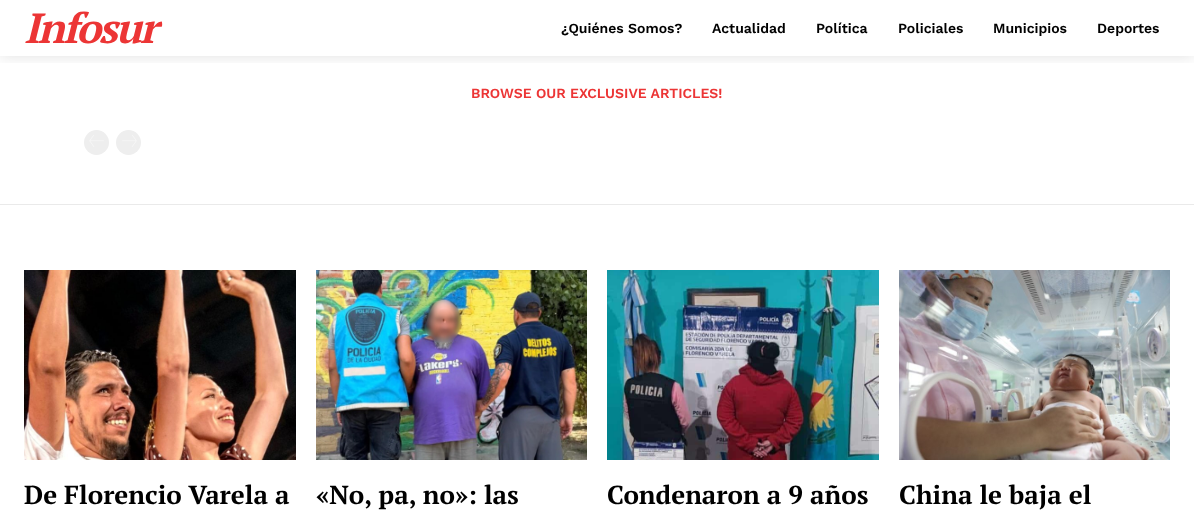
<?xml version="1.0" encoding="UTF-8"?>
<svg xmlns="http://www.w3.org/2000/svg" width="1194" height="526">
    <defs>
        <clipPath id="clip1"><rect x="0" y="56" width="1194" height="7"/></clipPath>
        <filter id="blur1" x="-50%" y="-200%" width="200%" height="500%"><feGaussianBlur stdDeviation="7.5"/></filter>
    </defs>
    <rect width="100%" height="100%" fill="#FFFFFF"/>
    <g clip-path="url(#clip1)">
        <rect x="0" y="0" width="1194" height="56" fill="#000000" fill-opacity="0.12" filter="url(#blur1)"/>
    </g>
    <text x="24" y="43" font-family="PT Serif" font-size="42" font-weight="700" font-style="italic" letter-spacing="-2" fill="#EC3535">Infosur</text>
    <text x="561" y="33" font-family="Work Sans" font-size="14" font-weight="600" fill="#000000">¿Quiénes Somos?</text>
    <text x="712" y="33" font-family="Work Sans" font-size="14" font-weight="600" fill="#000000">Actualidad</text>
    <text x="816" y="33" font-family="Work Sans" font-size="14" font-weight="600" fill="#000000">Política</text>
    <text x="898" y="33" font-family="Work Sans" font-size="14" font-weight="600" fill="#000000">Policiales</text>
    <text x="993" y="33" font-family="Work Sans" font-size="14" font-weight="600" fill="#000000">Municipios</text>
    <text x="1097" y="33" font-family="Work Sans" font-size="14" font-weight="600" fill="#000000">Deportes</text>
    <text x="471" y="98" font-family="Work Sans" font-size="14" font-weight="600" fill="#EC3535">BROWSE OUR EXCLUSIVE ARTICLES!</text>
    <circle cx="96.5" cy="142.5" r="12.5" fill="#EEEEEE"/>
    <image x="89" y="135" width="15" height="12" href="img_01.png"/>
    <circle cx="128.5" cy="142.5" r="12.5" fill="#EEEEEE"/>
    <image x="122" y="135" width="15" height="12" href="img_02.png"/>
    <rect x="0" y="204" width="1194" height="1" fill="#EAEAEA"/>
    <image x="24" y="270" width="272" height="190" href="img_03.png"/>
    <text x="24" y="504" font-family="PT Serif" font-size="26" font-weight="700" fill="#000000">De Florencio Varela a</text>
    <image x="316" y="270" width="271" height="190" href="img_04.png"/>
    <text x="316" y="504" font-family="PT Serif" font-size="26" font-weight="700" fill="#000000">«No, pa, no»: las</text>
    <image x="607" y="270" width="272" height="190" href="img_05.png"/>
    <text x="607" y="504" font-family="PT Serif" font-size="26" font-weight="700" fill="#000000">Condenaron a 9 años</text>
    <image x="899" y="270" width="271" height="190" href="img_06.png"/>
    <text x="899" y="504" font-family="PT Serif" font-size="26" font-weight="700" fill="#000000">China le baja el</text>
</svg>
